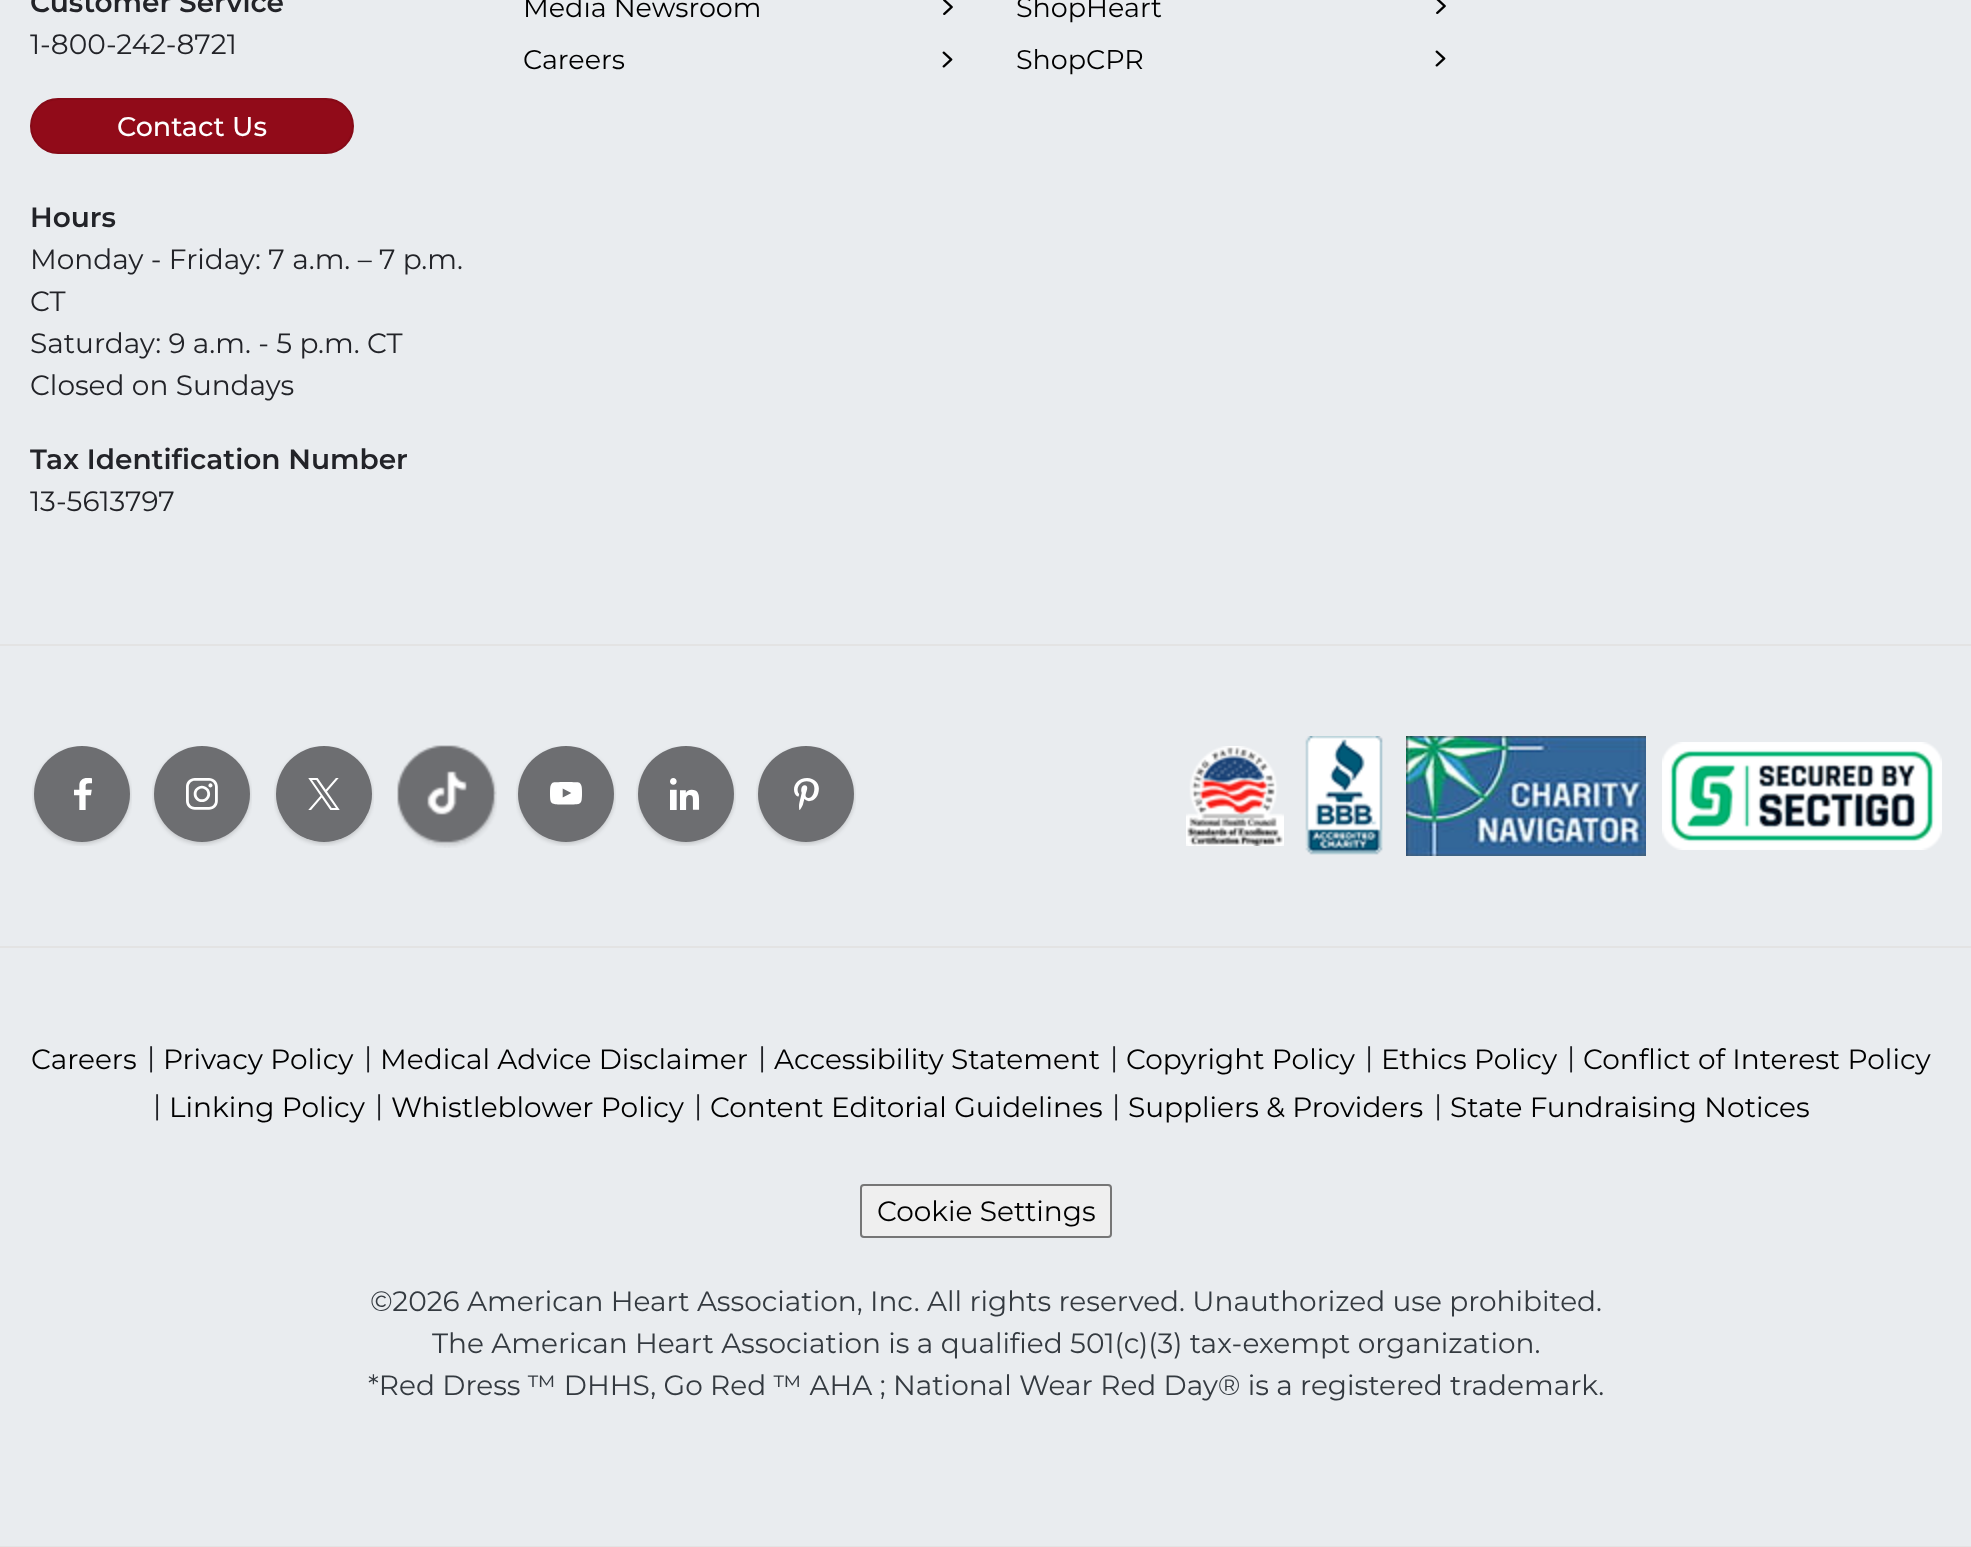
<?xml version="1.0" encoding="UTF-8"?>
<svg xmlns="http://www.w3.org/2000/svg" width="1971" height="1547">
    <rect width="100%" height="100%" fill="#E9ECEF"/>
    <rect x="0" y="644" width="1971" height="2" fill="#E3E3E3"/>
    <text x="30" y="12" font-family="Montserrat" font-size="28" font-weight="600" fill="#222328">Customer Service</text>
    <text x="30" y="54" font-family="Montserrat" font-size="28" fill="#222328">1-800-242-8721</text>
    <rect x="31" y="99" width="322" height="54" rx="27" fill="#910B19" stroke="#860A17" stroke-width="2"/>
    <text x="117" y="136" font-family="Montserrat" font-size="27" font-weight="500" fill="#FFFFFF">Contact Us</text>
    <text x="30" y="227" font-family="Montserrat" font-size="28" font-weight="600" fill="#222328">Hours</text>
    <text font-family="Montserrat" font-size="28" fill="#222328">
        <tspan x="30" y="269">Monday - Friday: 7 a.m. – 7 p.m.</tspan>
        <tspan x="30" y="311">CT</tspan>
        <tspan x="30" y="353">Saturday: 9 a.m. - 5 p.m. CT</tspan>
        <tspan x="30" y="395">Closed on Sundays</tspan>
    </text>
    <text x="30" y="469" font-family="Montserrat" font-size="28" font-weight="600" fill="#222328">Tax Identification Number</text>
    <text x="30" y="511" font-family="Montserrat" font-size="28" fill="#222328">13-5613797</text>
    <text x="523" y="17" font-family="Montserrat" font-size="27" fill="#000000">Media Newsroom</text>
    <image x="943" y="0" width="10" height="15" href="img_01.png"/>
    <text x="523" y="69" font-family="Montserrat" font-size="27" fill="#000000">Careers</text>
    <image x="942" y="51" width="11" height="17" href="img_02.png"/>
    <text x="1016" y="17" font-family="Montserrat" font-size="27" fill="#000000">ShopHeart</text>
    <image x="1436" y="0" width="10" height="14" href="img_03.png"/>
    <text x="1016" y="69" font-family="Montserrat" font-size="27" fill="#000000">ShopCPR</text>
    <image x="1435" y="50" width="11" height="17" href="img_02.png"/>
    <rect x="0" y="946" width="1971" height="2" fill="#E3E3E3"/>
    <image x="32" y="746" width="100" height="100" href="img_04.png"/>
    <image x="152" y="746" width="100" height="100" href="img_05.png"/>
    <image x="274" y="746" width="100" height="100" href="img_06.png"/>
    <image x="397" y="745" width="100" height="103" href="img_07.png"/>
    <image x="516" y="746" width="100" height="100" href="img_08.png"/>
    <image x="636" y="746" width="100" height="100" href="img_09.png"/>
    <image x="756" y="746" width="100" height="100" href="img_10.png"/>
    <image x="1186" y="746" width="98" height="100" href="img_11.png"/>
    <image x="1305" y="736" width="78" height="119" href="img_12.png"/>
    <image x="1406" y="736" width="240" height="120" href="img_13.png"/>
    <image x="1662" y="742" width="280" height="108" href="img_14.png"/>
    <rect x="0" y="1546" width="1971" height="1" fill="#E3E3E3"/>
    <text x="31" y="1069" font-family="Montserrat" font-size="28" fill="#000000">Careers</text>
    <text x="147" y="1067" font-family="Montserrat" font-size="28" fill="#222328">|</text>
    <text x="163" y="1069" font-family="Montserrat" font-size="28" fill="#000000">Privacy Policy</text>
    <text x="364" y="1067" font-family="Montserrat" font-size="28" fill="#222328">|</text>
    <text x="380" y="1069" font-family="Montserrat" font-size="28" fill="#000000">Medical Advice Disclaimer</text>
    <text x="758" y="1067" font-family="Montserrat" font-size="28" fill="#222328">|</text>
    <text x="774" y="1069" font-family="Montserrat" font-size="28" fill="#000000">Accessibility Statement</text>
    <text x="1110" y="1067" font-family="Montserrat" font-size="28" fill="#222328">|</text>
    <text x="1126" y="1069" font-family="Montserrat" font-size="28" fill="#000000">Copyright Policy</text>
    <text x="1365" y="1067" font-family="Montserrat" font-size="28" fill="#222328">|</text>
    <text x="1381" y="1069" font-family="Montserrat" font-size="28" fill="#000000">Ethics Policy</text>
    <text x="1567" y="1067" font-family="Montserrat" font-size="28" fill="#222328">|</text>
    <text x="1583" y="1069" font-family="Montserrat" font-size="28" fill="#000000">Conflict of Interest Policy</text>
    <text x="153" y="1115" font-family="Montserrat" font-size="28" fill="#222328">|</text>
    <text x="169" y="1117" font-family="Montserrat" font-size="28" fill="#000000">Linking Policy</text>
    <text x="375" y="1115" font-family="Montserrat" font-size="28" fill="#222328">|</text>
    <text x="391" y="1117" font-family="Montserrat" font-size="28" fill="#000000">Whistleblower Policy</text>
    <text x="694" y="1115" font-family="Montserrat" font-size="28" fill="#222328">|</text>
    <text x="710" y="1117" font-family="Montserrat" font-size="28" fill="#000000">Content Editorial Guidelines</text>
    <text x="1112" y="1115" font-family="Montserrat" font-size="28" fill="#222328">|</text>
    <text x="1128" y="1117" font-family="Montserrat" font-size="28" fill="#000000">Suppliers &amp; Providers</text>
    <text x="1434" y="1115" font-family="Montserrat" font-size="28" fill="#222328">|</text>
    <text x="1450" y="1117" font-family="Montserrat" font-size="28" fill="#000000">State Fundraising Notices</text>
    <rect x="861" y="1185" width="250" height="52" rx="3" fill="#EFEFEF" stroke="#767676" stroke-width="2"/>
    <text x="877" y="1221" font-family="Montserrat" font-size="28" fill="#000000">Cookie Settings</text>
    <text x="370" y="1311" font-family="Montserrat" font-size="28" fill="#343A40">©2026 American Heart Association, Inc. All rights reserved. Unauthorized use prohibited.</text>
    <text x="432" y="1353" font-family="Montserrat" font-size="28" fill="#343A40">The American Heart Association is a qualified 501(c)(3) tax-exempt organization.</text>
    <text x="368" y="1395" font-family="Montserrat" font-size="28" fill="#343A40">*Red Dress ™ DHHS, Go Red ™ AHA ; National Wear Red Day® is a registered trademark.</text>
</svg>
